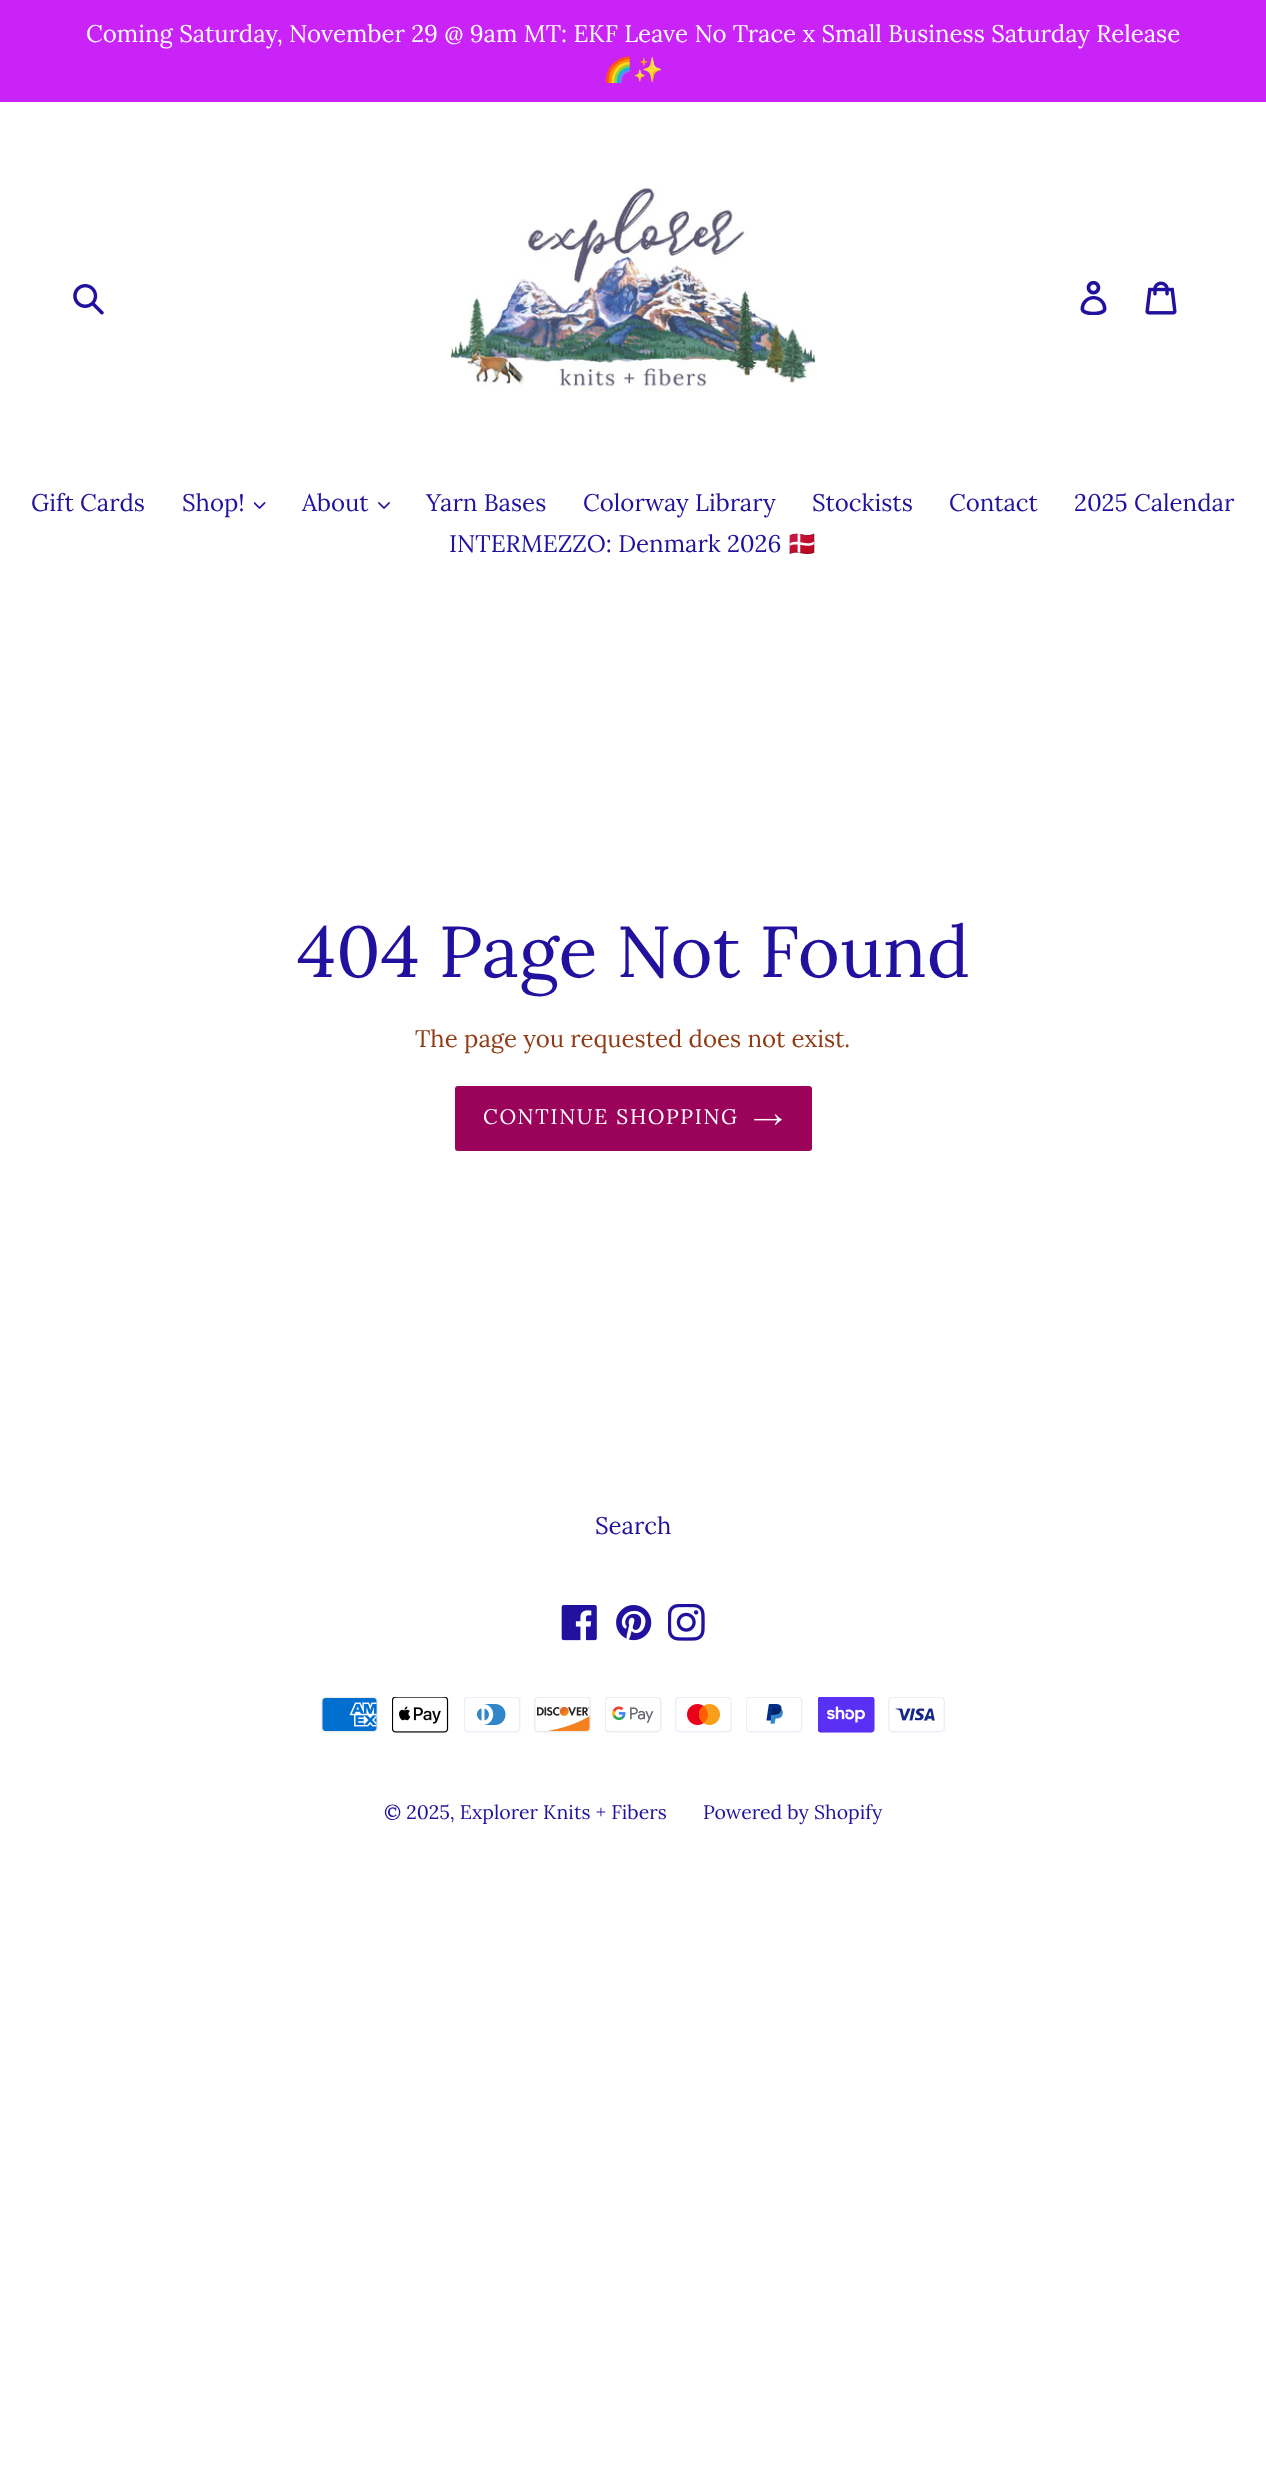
<?xml version="1.0" encoding="UTF-8"?>
<svg xmlns="http://www.w3.org/2000/svg" width="1266" height="2488">
    <rect width="100%" height="100%" fill="#FFFFFF"/>
    <rect x="0" y="0" width="1266" height="102" fill="#CA23F8"/>
    <text x="86" y="42" font-family="Lora" font-size="24" fill="#FFFFFF">Coming Saturday, November 29 @ 9am MT: EKF Leave No Trace x Small Business Saturday Release</text>
    <text x="603" y="78" font-family="Noto Color Emoji" font-size="24" fill="#FFFFFF">🌈✨</text>
    <image x="73" y="284" width="31" height="31" href="img_01.png"/>
    <image x="450" y="187" width="366" height="205" href="img_02.png"/>
    <image x="1080" y="281" width="27" height="34" href="img_03.png"/>
    <image x="1145" y="281" width="32" height="34" href="img_04.png"/>
    <text x="31" y="511" font-family="Lora" font-size="24" fill="#21119E">Gift Cards</text>
    <text x="182" y="511" font-family="Lora" font-size="24" fill="#21119E">Shop!</text>
    <image x="254" y="502" width="12" height="7" href="img_05.png"/>
    <text x="302" y="511" font-family="Lora" font-size="24" fill="#21119E">About</text>
    <image x="378" y="502" width="12" height="7" href="img_06.png"/>
    <text x="426" y="511" font-family="Lora" font-size="24" fill="#21119E">Yarn Bases</text>
    <text x="583" y="511" font-family="Lora" font-size="24" fill="#21119E">Colorway Library</text>
    <text x="812" y="511" font-family="Lora" font-size="24" fill="#21119E">Stockists</text>
    <text x="949" y="511" font-family="Lora" font-size="24" fill="#21119E">Contact</text>
    <text x="1074" y="511" font-family="Lora" font-size="24" fill="#21119E">2025 Calendar</text>
    <text x="449" y="552" font-family="Lora" font-size="24" fill="#21119E">INTERMEZZO: Denmark 2026</text>
    <text x="787" y="552" font-family="Noto Color Emoji" font-size="24" fill="#21119E">🇩🇰</text>
    <text x="297" y="977" font-family="Lora" font-size="72" fill="#21119E">404 Page Not Found</text>
    <text x="415" y="1047" font-family="Lora" font-size="24" fill="#903B15">The page you requested does not exist.</text>
    <rect x="455" y="1086" width="357" height="65" rx="3" fill="#9B035B"/>
    <text x="483" y="1124" font-family="Lora" font-size="21" letter-spacing="1.7" fill="#FFFFFF">CONTINUE SHOPPING</text>
    <image x="754" y="1114" width="28" height="11" href="img_07.png"/>
    <text x="595" y="1534" font-family="Lora" font-size="24" fill="#21119E">Search</text>
    <image x="561" y="1605" width="36" height="36" href="img_08.png"/>
    <image x="616" y="1605" width="36" height="36" href="img_09.png"/>
    <image x="668" y="1604" width="37" height="37" href="img_10.png"/>
    <image x="321" y="1697" width="57" height="36" href="img_11.png"/>
    <image x="392" y="1697" width="57" height="36" href="img_12.png"/>
    <image x="464" y="1697" width="57" height="36" href="img_13.png"/>
    <image x="534" y="1697" width="57" height="36" href="img_14.png"/>
    <image x="605" y="1697" width="57" height="36" href="img_15.png"/>
    <image x="675" y="1697" width="57" height="36" href="img_16.png"/>
    <image x="746" y="1697" width="57" height="36" href="img_17.png"/>
    <image x="818" y="1697" width="57" height="36" href="img_18.png"/>
    <image x="888" y="1697" width="57" height="36" href="img_19.png"/>
    <text x="384" y="1819" font-family="Lora" font-size="19.5" fill="#21119E">© 2025, Explorer Knits + Fibers</text>
    <text x="703" y="1819" font-family="Lora" font-size="19.5" fill="#21119E">Powered by Shopify</text>
</svg>
